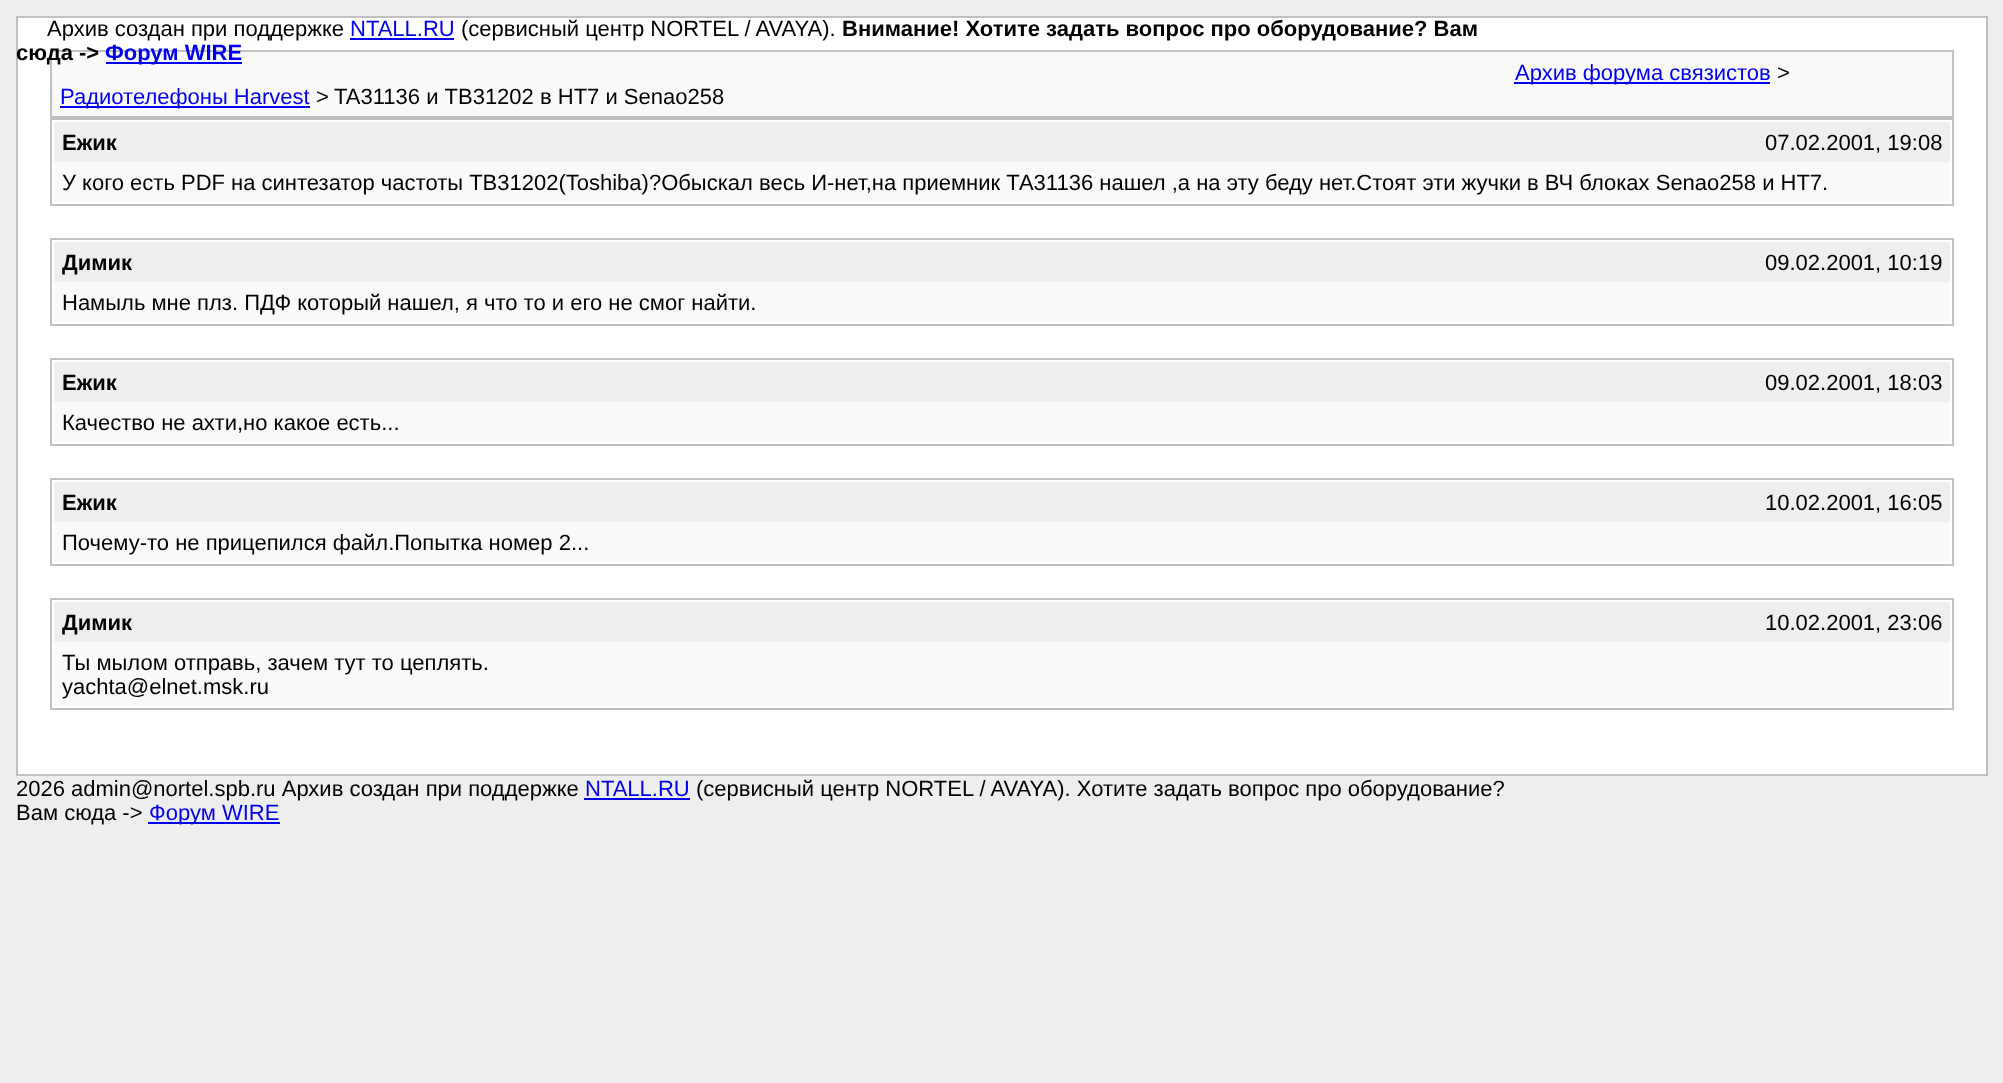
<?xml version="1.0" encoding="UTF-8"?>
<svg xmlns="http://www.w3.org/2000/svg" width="2003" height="1083">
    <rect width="100%" height="100%" fill="#EEEEEE"/>
    <rect x="17" y="17" width="1970" height="758" fill="#FFFFFF" stroke="#C0C0C0" stroke-width="2"/>
    <text x="47" y="36" font-family="Liberation Sans" font-size="22" fill="#000000">Архив создан при поддержке</text>
    <text x="350" y="36" font-family="Liberation Sans" font-size="22" fill="#0000EE">NTALL.RU</text>
    <rect x="350" y="38" width="104" height="2" fill="#0000EE"/>
    <text x="461" y="36" font-family="Liberation Sans" font-size="22" fill="#000000">(сервисный центр NORTEL / AVAYA).</text>
    <text x="842" y="36" font-family="Liberation Sans" font-size="22" font-weight="700" fill="#000000">Внимание! Хотите задать вопрос про оборудование? Вам</text>
    <rect x="51" y="51" width="1902" height="66" fill="#F9F9F9" stroke="#C0C0C0" stroke-width="2"/>
    <text x="16" y="60" font-family="Liberation Sans" font-size="22" font-weight="700" fill="#000000">сюда -&gt;</text>
    <rect x="106" y="62" width="136" height="2" fill="#0000EE"/>
    <text x="105" y="60" font-family="Liberation Sans" font-size="22" font-weight="700" fill="#0000EE">Форум WIRE</text>
    <rect x="1514" y="82" width="256" height="2" fill="#0000EE"/>
    <text x="1515" y="80" font-family="Liberation Sans" font-size="22" fill="#0000EE">Архив форума связистов</text>
    <text x="1777" y="80" font-family="Liberation Sans" font-size="22" fill="#000000">&gt;</text>
    <rect x="60" y="106" width="250" height="2" fill="#0000EE"/>
    <text x="60" y="104" font-family="Liberation Sans" font-size="22" fill="#0000EE">Радиотелефоны Harvest</text>
    <text x="316" y="104" font-family="Liberation Sans" font-size="22" fill="#000000">&gt;</text>
    <text x="334" y="104" font-family="Liberation Sans" font-size="22" fill="#000000">TA31136 и TB31202 в НТ7 и Senao258</text>
    <rect x="51" y="119" width="1902" height="86" fill="none" stroke="#C0C0C0" stroke-width="2"/>
    <rect x="54" y="122" width="1896" height="40" fill="#EEEEEE"/>
    <text x="62" y="150" font-family="Liberation Sans" font-size="22" font-weight="700" fill="#000000">Ежик</text>
    <text x="1765" y="150" font-family="Liberation Sans" font-size="22" fill="#000000">07.02.2001, 19:08</text>
    <rect x="54" y="162" width="1896" height="40" fill="#F9F9F9"/>
    <text x="62" y="190" font-family="Liberation Sans" font-size="22" fill="#000000">У кого есть PDF на синтезатор частоты TB31202(Toshiba)?Обыскал весь И-нет,на приемник ТА31136 нашел ,а на эту беду нет.Стоят эти жучки в ВЧ блоках Senao258 и НТ7.</text>
    <rect x="51" y="239" width="1902" height="86" fill="none" stroke="#C0C0C0" stroke-width="2"/>
    <rect x="54" y="242" width="1896" height="40" fill="#EEEEEE"/>
    <text x="62" y="270" font-family="Liberation Sans" font-size="22" font-weight="700" fill="#000000">Димик</text>
    <text x="1765" y="270" font-family="Liberation Sans" font-size="22" fill="#000000">09.02.2001, 10:19</text>
    <rect x="54" y="282" width="1896" height="40" fill="#F9F9F9"/>
    <text x="62" y="310" font-family="Liberation Sans" font-size="22" fill="#000000">Намыль мне плз. ПДФ который нашел, я что то и его не смог найти.</text>
    <rect x="51" y="359" width="1902" height="86" fill="none" stroke="#C0C0C0" stroke-width="2"/>
    <rect x="54" y="362" width="1896" height="40" fill="#EEEEEE"/>
    <text x="62" y="390" font-family="Liberation Sans" font-size="22" font-weight="700" fill="#000000">Ежик</text>
    <text x="1765" y="390" font-family="Liberation Sans" font-size="22" fill="#000000">09.02.2001, 18:03</text>
    <rect x="54" y="402" width="1896" height="40" fill="#F9F9F9"/>
    <text x="62" y="430" font-family="Liberation Sans" font-size="22" fill="#000000">Качество не ахти,но какое есть...</text>
    <rect x="51" y="479" width="1902" height="86" fill="none" stroke="#C0C0C0" stroke-width="2"/>
    <rect x="54" y="482" width="1896" height="40" fill="#EEEEEE"/>
    <text x="62" y="510" font-family="Liberation Sans" font-size="22" font-weight="700" fill="#000000">Ежик</text>
    <text x="1765" y="510" font-family="Liberation Sans" font-size="22" fill="#000000">10.02.2001, 16:05</text>
    <rect x="54" y="522" width="1896" height="40" fill="#F9F9F9"/>
    <text x="62" y="550" font-family="Liberation Sans" font-size="22" fill="#000000">Почему-то не прицепился файл.Попытка номер 2...</text>
    <rect x="51" y="599" width="1902" height="110" fill="none" stroke="#C0C0C0" stroke-width="2"/>
    <rect x="54" y="602" width="1896" height="40" fill="#EEEEEE"/>
    <text x="62" y="630" font-family="Liberation Sans" font-size="22" font-weight="700" fill="#000000">Димик</text>
    <text x="1765" y="630" font-family="Liberation Sans" font-size="22" fill="#000000">10.02.2001, 23:06</text>
    <rect x="54" y="642" width="1896" height="64" fill="#F9F9F9"/>
    <text font-family="Liberation Sans" font-size="22" fill="#000000">
        <tspan x="62" y="670">Ты мылом отправь, зачем тут то цеплять.</tspan>
        <tspan x="62" y="694">yachta@elnet.msk.ru</tspan>
    </text>
    <text x="16" y="796" font-family="Liberation Sans" font-size="22" fill="#000000">2026 admin@nortel.spb.ru Архив создан при поддержке</text>
    <text x="585" y="796" font-family="Liberation Sans" font-size="22" fill="#0000EE">NTALL.RU</text>
    <rect x="584" y="798" width="106" height="2" fill="#0000EE"/>
    <text x="696" y="796" font-family="Liberation Sans" font-size="22" fill="#000000">(сервисный центр NORTEL / AVAYA). Хотите задать вопрос про оборудование?</text>
    <text x="16" y="820" font-family="Liberation Sans" font-size="22" fill="#000000">Вам сюда -&gt;</text>
    <rect x="148" y="822" width="132" height="2" fill="#0000EE"/>
    <text x="149" y="820" font-family="Liberation Sans" font-size="22" fill="#0000EE">Форум WIRE</text>
</svg>
